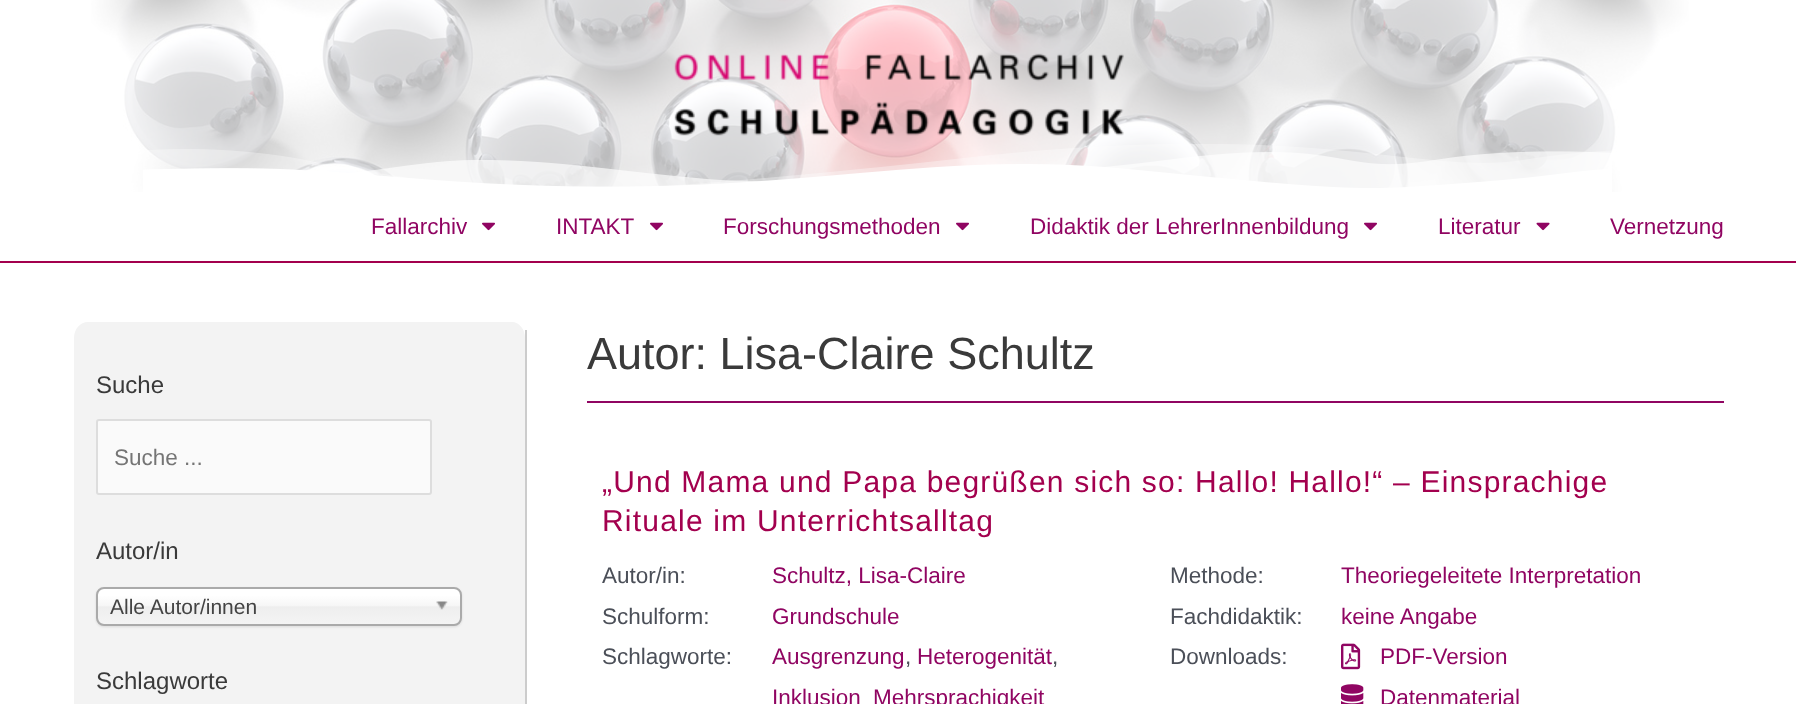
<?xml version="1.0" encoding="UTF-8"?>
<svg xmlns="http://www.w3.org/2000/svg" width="1796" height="704">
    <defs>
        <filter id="blur1" x="-50%" y="-200%" width="200%" height="500%"><feGaussianBlur stdDeviation="1"/></filter>
        <linearGradient id="g1" gradientUnits="userSpaceOnUse" x1="279" y1="588" x2="279" y2="624"><stop offset="0.2" stop-color="#FFFFFF"/><stop offset="0.5" stop-color="#F6F6F6"/><stop offset="0.52" stop-color="#EEEEEE"/><stop offset="1" stop-color="#F4F4F4"/></linearGradient>
    </defs>
    <rect width="100%" height="100%" fill="#FFFFFF"/>
    <image x="91" y="0" width="1598" height="192" href="img_01.png"/>
    <image x="673" y="53" width="451" height="83" href="img_02.png"/>
    <image x="143" y="144" width="1469" height="48" href="img_03.png"/>
    <rect x="0" y="261" width="1796" height="2" fill="#A3004E"/>
    <text x="371" y="234" font-family="Liberation Sans" font-size="22.5" fill="#900562">Fallarchiv</text>
    <image x="482" y="222" width="13" height="9" href="img_04.png"/>
    <text x="556" y="234" font-family="Liberation Sans" font-size="22.5" fill="#900562">INTAKT</text>
    <image x="650" y="222" width="13" height="9" href="img_04.png"/>
    <text x="723" y="234" font-family="Liberation Sans" font-size="22.5" fill="#900562">Forschungsmethoden</text>
    <image x="956" y="222" width="13" height="9" href="img_04.png"/>
    <text x="1030" y="234" font-family="Liberation Sans" font-size="22.5" fill="#900562">Didaktik der LehrerInnenbildung</text>
    <image x="1364" y="222" width="13" height="9" href="img_04.png"/>
    <text x="1438" y="234" font-family="Liberation Sans" font-size="22.5" fill="#900562">Literatur</text>
    <image x="1536" y="222" width="14" height="9" href="img_05.png"/>
    <text x="1610" y="234" font-family="Liberation Sans" font-size="22.5" fill="#900562">Vernetzung</text>
    <path d="M 88 322 H 512 C 519 322 525 329 525 338 V 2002 C 525 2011 519 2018 512 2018 H 88 C 80 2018 74 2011 74 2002 V 338 C 74 329 80 322 88 322 Z" fill="#F3F3F3"/>
    <rect x="525" y="330" width="2" height="374" fill="#CCCCCC"/>
    <text x="96" y="393" font-family="Liberation Sans" font-size="24" fill="#3A3A3A">Suche</text>
    <rect x="97" y="420" width="334" height="74" rx="2" fill="#FAFAFA" stroke="#DDDDDD" stroke-width="2"/>
    <text x="114" y="465" font-family="Liberation Sans" font-size="22.5" fill="#757575">Suche ...</text>
    <text x="96" y="559" font-family="Liberation Sans" font-size="24" fill="#3A3A3A">Autor/in</text>
    <rect x="96" y="588" width="366" height="39" rx="8" fill="#000000" fill-opacity="0.1" filter="url(#blur1)"/>
    <rect x="98" y="588" width="363" height="36" rx="6" fill="url(#g1)"/>
    <rect x="97" y="588" width="364" height="37" rx="7" fill="none" stroke="#AAAAAA" stroke-width="2"/>
    <text x="110" y="614" font-family="Liberation Sans" font-size="21" fill="#444444">Alle Autor/innen</text>
    <image x="436" y="601" width="12" height="9" href="img_06.png"/>
    <text x="96" y="689" font-family="Liberation Sans" font-size="24" fill="#3A3A3A">Schlagworte</text>
    <rect x="587" y="401" width="1137" height="2" fill="#900562"/>
    <text x="587" y="369" font-family="Liberation Sans" font-size="45" fill="#3A3A3A">Autor: Lisa-Claire Schultz</text>
    <text font-family="Liberation Sans" font-size="30" letter-spacing="1.2" fill="#A3004E">
        <tspan x="602" y="492">„Und Mama und Papa begrüßen sich so: Hallo! Hallo!“ – Einsprachige</tspan>
        <tspan x="602" y="531">Rituale im Unterrichtsalltag</tspan>
    </text>
    <text x="602" y="583" font-family="Liberation Sans" font-size="22.5" fill="#4B4F58">Autor/in:</text>
    <text x="772" y="583" font-family="Liberation Sans" font-size="22.5" fill="#900562">Schultz, Lisa-Claire</text>
    <text x="602" y="624" font-family="Liberation Sans" font-size="22.5" fill="#4B4F58">Schulform:</text>
    <text x="772" y="624" font-family="Liberation Sans" font-size="22.5" fill="#900562">Grundschule</text>
    <text x="602" y="664" font-family="Liberation Sans" font-size="22.5" fill="#4B4F58">Schlagworte:</text>
    <text x="772" y="664" font-family="Liberation Sans" font-size="22.5" fill="#900562">Ausgrenzung</text>
    <text x="905" y="664" font-family="Liberation Sans" font-size="22.5" fill="#4B4F58">,</text>
    <text x="917" y="664" font-family="Liberation Sans" font-size="22.5" fill="#900562">Heterogenität</text>
    <text x="1052" y="664" font-family="Liberation Sans" font-size="22.5" fill="#4B4F58">,</text>
    <text x="772" y="705" font-family="Liberation Sans" font-size="22.5" fill="#900562">Inklusion</text>
    <text x="873" y="705" font-family="Liberation Sans" font-size="22.5" fill="#900562">Mehrsprachigkeit</text>
    <text x="1170" y="583" font-family="Liberation Sans" font-size="22.5" fill="#4B4F58">Methode:</text>
    <text x="1341" y="583" font-family="Liberation Sans" font-size="22.5" fill="#900562">Theoriegeleitete Interpretation</text>
    <text x="1170" y="624" font-family="Liberation Sans" font-size="22.5" fill="#4B4F58">Fachdidaktik:</text>
    <text x="1341" y="624" font-family="Liberation Sans" font-size="22.5" fill="#900562">keine Angabe</text>
    <text x="1170" y="664" font-family="Liberation Sans" font-size="22.5" fill="#4B4F58">Downloads:</text>
    <image x="1341" y="643" width="20" height="27" href="img_07.png"/>
    <text x="1380" y="664" font-family="Liberation Sans" font-size="22.5" fill="#900562">PDF-Version</text>
    <image x="1341" y="684" width="23" height="20" href="img_08.png"/>
    <text x="1380" y="705" font-family="Liberation Sans" font-size="22.5" fill="#900562">Datenmaterial</text>
</svg>
